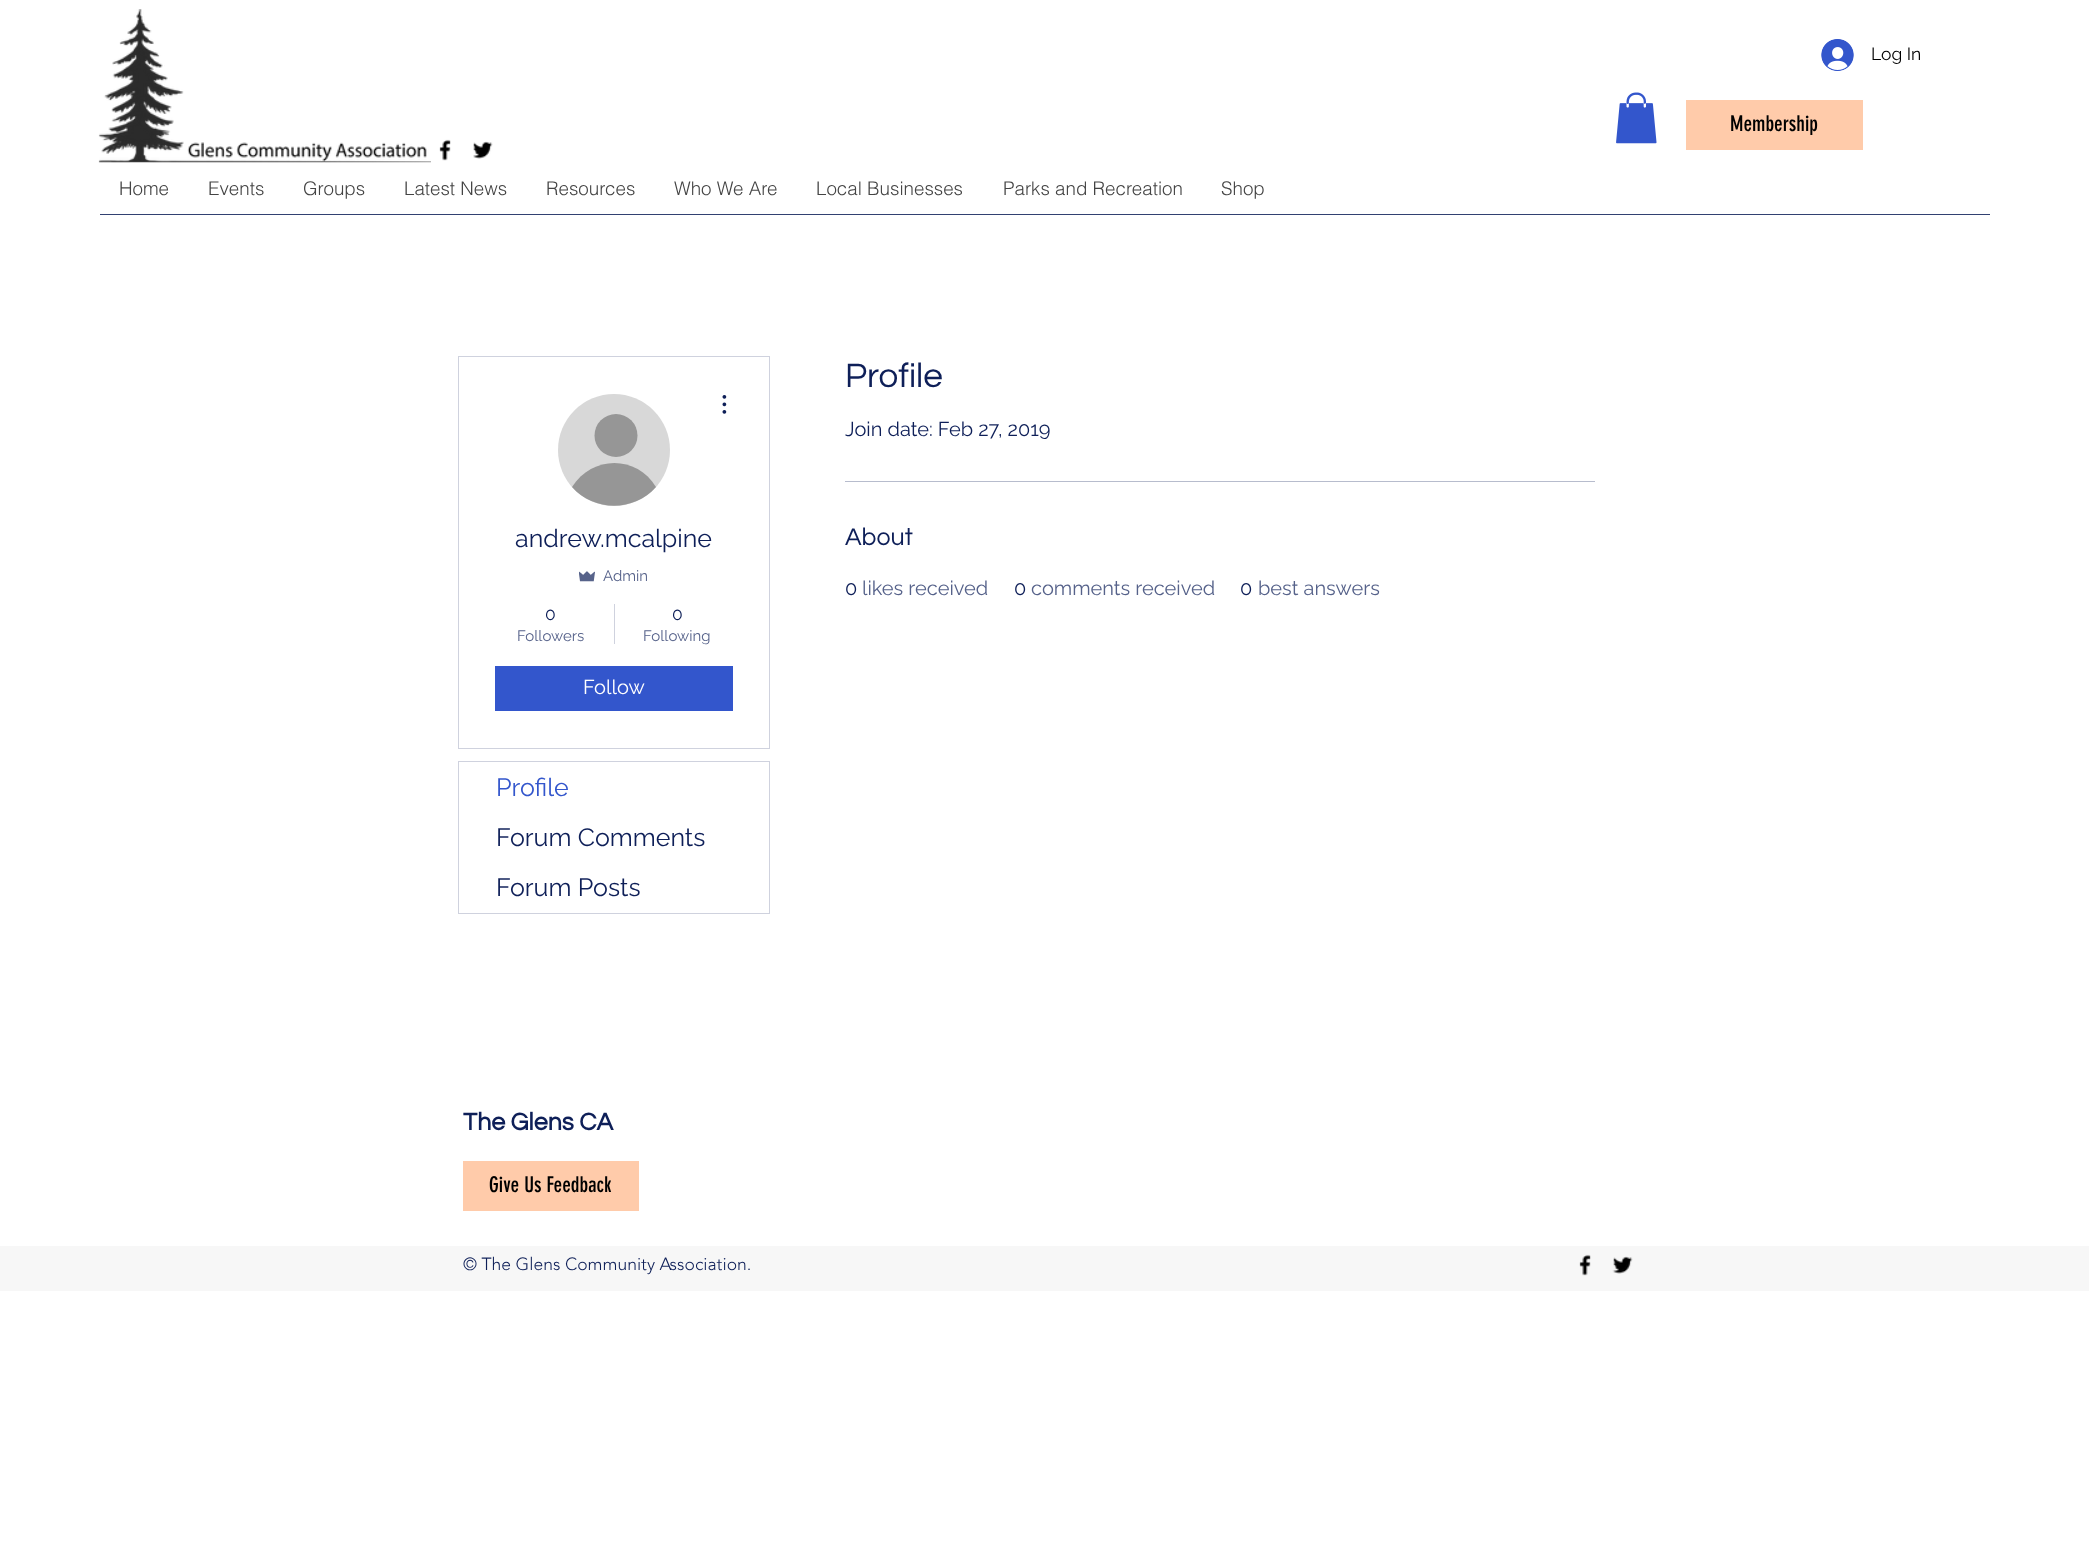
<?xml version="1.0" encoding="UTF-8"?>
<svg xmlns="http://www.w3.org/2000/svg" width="2089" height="1543">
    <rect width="100%" height="100%" fill="#FFFFFF"/>
    <image x="1616" y="92" width="41" height="52" href="img_01.png"/>
    <image x="98" y="9" width="333" height="154" href="img_02.png"/>
    <image x="439" y="139" width="12" height="22" href="img_03.png"/>
    <image x="473" y="141" width="20" height="18" href="img_04.png"/>
    <image x="1821" y="39" width="33" height="32" href="img_05.png"/>
    <text x="1871" y="60" font-family="Raleway" font-size="17.5" fill="#000000">Log In</text>
    <rect x="1686" y="100" width="177" height="50" fill="#FFCBAA"/>
    <text x="1730" y="131" font-family="'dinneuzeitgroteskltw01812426'" font-size="21.25" fill="#000000">Membership</text>
    <text x="119" y="195" font-family="helvetica" font-size="18.75" font-weight="300" fill="#444444">Home</text>
    <text x="208" y="195" font-family="helvetica" font-size="18.75" font-weight="300" fill="#444444">Events</text>
    <text x="303" y="195" font-family="helvetica" font-size="18.75" font-weight="300" fill="#444444">Groups</text>
    <text x="404" y="195" font-family="helvetica" font-size="18.75" font-weight="300" fill="#444444">Latest News</text>
    <text x="546" y="195" font-family="helvetica" font-size="18.75" font-weight="300" fill="#444444">Resources</text>
    <text x="674" y="195" font-family="helvetica" font-size="18.75" font-weight="300" fill="#444444">Who We Are</text>
    <text x="816" y="195" font-family="helvetica" font-size="18.75" font-weight="300" fill="#444444">Local Businesses</text>
    <text x="1003" y="195" font-family="helvetica" font-size="18.75" font-weight="300" fill="#444444">Parks and Recreation</text>
    <text x="1221" y="195" font-family="helvetica" font-size="18.75" font-weight="300" fill="#444444">Shop</text>
    <rect x="100" y="214" width="1890" height="1" fill="#324171"/>
    <text x="845" y="387" font-family="Questrial" font-size="35" fill="#0E1F58">Profile</text>
    <text x="845" y="436" font-family="Raleway" font-size="20" fill="#0E1F58">Join date: Feb 27, 2019</text>
    <rect x="845" y="481" width="750" height="1" fill="#B7BCCD"/>
    <text x="845" y="545" font-family="Questrial" font-size="25" fill="#0E1F58">About</text>
    <text x="845" y="595" font-family="Raleway" font-size="20" fill="#0E1F58">0</text>
    <text x="862" y="595" font-family="Raleway" font-size="20" fill="#56628A">likes received</text>
    <text x="1014" y="595" font-family="Raleway" font-size="20" fill="#0E1F58">0</text>
    <text x="1031" y="595" font-family="Raleway" font-size="20" fill="#56628A">comments received</text>
    <text x="1240" y="595" font-family="Raleway" font-size="20" fill="#0E1F58">0</text>
    <text x="1258" y="595" font-family="Raleway" font-size="20" fill="#56628A">best answers</text>
    <rect x="458.5" y="356.5" width="311" height="392" fill="none" stroke="#CFD2DE"/>
    <circle cx="614" cy="450" r="56" fill="#D8D8D8"/>
    <circle cx="616" cy="435.5" r="21.5" fill="#969696"/>
    <path d="M 656 487 C 634 512 594 512 572 487 C 592 455 637 455 656 487 Z" fill="#969696"/>
    <image x="722" y="395" width="5" height="19" href="img_06.png"/>
    <text x="515" y="547" font-family="Raleway" font-size="25" fill="#0E1F58">andrew.mcalpine</text>
    <image x="579" y="571" width="16" height="11" href="img_07.png"/>
    <text x="603" y="581" font-family="Raleway" font-size="15" fill="#56628A">Admin</text>
    <text x="545" y="620" font-family="Raleway" font-size="17.5" fill="#0E1F58">0</text>
    <text x="517" y="641" font-family="Raleway" font-size="15" fill="#56628A">Followers</text>
    <rect x="614" y="604" width="1" height="40" fill="#CFD2DE"/>
    <text x="672" y="620" font-family="Raleway" font-size="17.5" fill="#0E1F58">0</text>
    <text x="643" y="641" font-family="Raleway" font-size="15" fill="#56628A">Following</text>
    <rect x="495" y="666" width="238" height="45" fill="#3356CC"/>
    <text x="583" y="694" font-family="Raleway" font-size="20" fill="#FFFFFF">Follow</text>
    <rect x="458.5" y="761.5" width="311" height="152" fill="none" stroke="#CFD2DE"/>
    <text x="496" y="796" font-family="Raleway" font-size="25" fill="#3356CC">Profile</text>
    <text x="496" y="846" font-family="Raleway" font-size="25" fill="#0E1F58">Forum Comments</text>
    <text x="496" y="896" font-family="Raleway" font-size="25" fill="#0E1F58">Forum Posts</text>
    <text x="463" y="1130" font-family="Questrial" font-size="25" font-weight="700" fill="#0E1F58">The Glens CA</text>
    <rect x="463" y="1161" width="176" height="50" fill="#FFCBAA"/>
    <text x="489" y="1192" font-family="'dinneuzeitgroteskltw01812426'" font-size="21.25" fill="#000000">Give Us Feedback</text>
    <rect x="0" y="1246" width="2089" height="45" fill="#F7F7F7"/>
    <text x="463" y="1270" font-family="'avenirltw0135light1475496'" font-size="17.5" font-weight="300" fill="#0E1F58">© The Glens Community Association.</text>
    <image x="1579" y="1254" width="12" height="22" href="img_08.png"/>
    <image x="1612" y="1256" width="21" height="18" href="img_09.png"/>
</svg>
